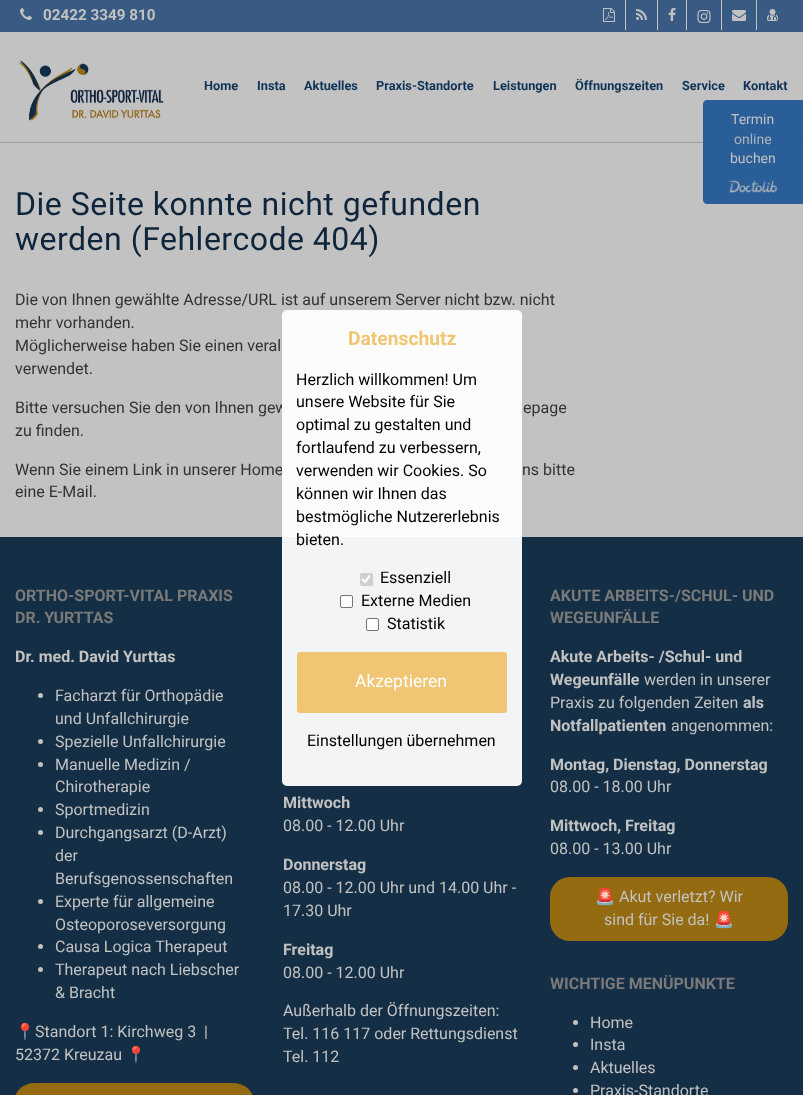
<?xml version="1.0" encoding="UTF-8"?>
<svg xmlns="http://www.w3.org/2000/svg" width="803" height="1095">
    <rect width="100%" height="100%" fill="#C2C2C2"/>
    <rect x="0" y="142" width="803" height="1" fill="#9E9E9E"/>
    <rect x="0" y="0" width="803" height="32" fill="#395A83"/>
    <image x="20" y="8" width="12" height="12" href="img_01.png"/>
    <text x="43" y="20" font-family="Roboto" font-size="15.25" font-weight="700" fill="#C2C2C2">02422 3349 810</text>
    <rect x="625" y="0" width="1" height="30" fill="#C2C2C2"/>
    <image x="603" y="8" width="12" height="14" href="img_02.png"/>
    <rect x="657" y="0" width="1" height="30" fill="#C2C2C2"/>
    <image x="636" y="9" width="11" height="11" href="img_03.png"/>
    <rect x="686" y="0" width="1" height="30" fill="#C2C2C2"/>
    <image x="668" y="8" width="8" height="13" href="img_04.png"/>
    <rect x="721" y="0" width="1" height="30" fill="#C2C2C2"/>
    <image x="697" y="10" width="14" height="13" href="img_05.png"/>
    <rect x="756" y="0" width="1" height="30" fill="#C2C2C2"/>
    <image x="732" y="10" width="14" height="11" href="img_06.png"/>
    <image x="767" y="9" width="11" height="12" href="img_07.png"/>
    <image x="19" y="60" width="145" height="61" href="img_08.png"/>
    <text x="204" y="90" font-family="Roboto" font-size="12.75" font-weight="700" fill="#0F3357">Home</text>
    <text x="257" y="90" font-family="Roboto" font-size="12.75" font-weight="700" fill="#0F3357">Insta</text>
    <text x="304" y="90" font-family="Roboto" font-size="12.75" font-weight="700" fill="#0F3357">Aktuelles</text>
    <text x="376" y="90" font-family="Roboto" font-size="12.75" font-weight="700" fill="#0F3357">Praxis-Standorte</text>
    <text x="493" y="90" font-family="Roboto" font-size="12.75" font-weight="700" fill="#0F3357">Leistungen</text>
    <text x="575" y="90" font-family="Roboto" font-size="12.75" font-weight="700" fill="#0F3357">Öffnungszeiten</text>
    <text x="682" y="90" font-family="Roboto" font-size="12.75" font-weight="700" fill="#0F3357">Service</text>
    <text x="743" y="90" font-family="Roboto" font-size="12.75" font-weight="700" fill="#0F3357">Kontakt</text>
    <rect x="0" y="537" width="803" height="558" fill="#142F45"/>
    <text font-family="Roboto" font-size="16" font-weight="700" fill="#7A7A7A">
        <tspan x="15" y="601">ORTHO-SPORT-VITAL PRAXIS</tspan>
        <tspan x="15" y="623">DR. YURTTAS</tspan>
    </text>
    <text x="15" y="662" font-family="Roboto" font-size="16" font-weight="700" fill="#C2C2C2">Dr. med. David Yurttas</text>
    <circle cx="40.5" cy="695.5" r="2.5" fill="#C2C2C2"/>
    <text font-family="Roboto" font-size="16" fill="#C2C2C2">
        <tspan x="55" y="701">Facharzt für Orthopädie</tspan>
        <tspan x="55" y="724">und Unfallchirurgie</tspan>
    </text>
    <circle cx="40.5" cy="741.5" r="2.5" fill="#C2C2C2"/>
    <text x="55" y="747" font-family="Roboto" font-size="16" fill="#C2C2C2">Spezielle Unfallchirurgie</text>
    <circle cx="40.5" cy="764.5" r="2.5" fill="#C2C2C2"/>
    <text font-family="Roboto" font-size="16" fill="#C2C2C2">
        <tspan x="55" y="770">Manuelle Medizin /</tspan>
        <tspan x="55" y="792">Chirotherapie</tspan>
    </text>
    <circle cx="40.5" cy="809.5" r="2.5" fill="#C2C2C2"/>
    <text x="55" y="815" font-family="Roboto" font-size="16" fill="#C2C2C2">Sportmedizin</text>
    <circle cx="40.5" cy="832.5" r="2.5" fill="#C2C2C2"/>
    <text font-family="Roboto" font-size="16" fill="#C2C2C2">
        <tspan x="55" y="838">Durchgangsarzt (D-Arzt)</tspan>
        <tspan x="55" y="861">der</tspan>
        <tspan x="55" y="884">Berufsgenossenschaften</tspan>
    </text>
    <circle cx="40.5" cy="901.5" r="2.5" fill="#C2C2C2"/>
    <text font-family="Roboto" font-size="16" fill="#C2C2C2">
        <tspan x="55" y="907">Experte für allgemeine</tspan>
        <tspan x="55" y="930">Osteoporoseversorgung</tspan>
    </text>
    <circle cx="40.5" cy="946.5" r="2.5" fill="#C2C2C2"/>
    <text x="55" y="952" font-family="Roboto" font-size="16" fill="#C2C2C2">Causa Logica Therapeut</text>
    <circle cx="40.5" cy="969.5" r="2.5" fill="#C2C2C2"/>
    <text font-family="Roboto" font-size="16" fill="#C2C2C2">
        <tspan x="55" y="975">Therapeut nach Liebscher</tspan>
        <tspan x="55" y="998">&amp; Bracht</tspan>
    </text>
    <text x="15" y="1037" font-family="Noto Color Emoji" font-size="16" fill="#C2C2C2">📍</text>
    <text x="35" y="1037" font-family="Roboto" font-size="16" fill="#C2C2C2" xml:space="preserve">Standort 1: Kirchweg 3  |</text>
    <text x="15" y="1060" font-family="Roboto" font-size="16" fill="#C2C2C2">52372 Kreuzau</text>
    <text x="126" y="1060" font-family="Noto Color Emoji" font-size="16" fill="#C2C2C2">📍</text>
    <rect x="15" y="1083" width="238" height="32" rx="20" fill="#946B10"/>
    <text x="283" y="808" font-family="Roboto" font-size="16" font-weight="700" fill="#C2C2C2">Mittwoch</text>
    <text x="283" y="831" font-family="Roboto" font-size="16" fill="#C2C2C2">08.00 - 12.00 Uhr</text>
    <text x="283" y="870" font-family="Roboto" font-size="16" font-weight="700" fill="#C2C2C2">Donnerstag</text>
    <text font-family="Roboto" font-size="16" fill="#C2C2C2">
        <tspan x="283" y="893">08.00 - 12.00 Uhr und 14.00 Uhr -</tspan>
        <tspan x="283" y="916">17.30 Uhr</tspan>
    </text>
    <text x="283" y="955" font-family="Roboto" font-size="16" font-weight="700" fill="#C2C2C2">Freitag</text>
    <text x="283" y="978" font-family="Roboto" font-size="16" fill="#C2C2C2">08.00 - 12.00 Uhr</text>
    <text font-family="Roboto" font-size="16" fill="#C2C2C2">
        <tspan x="283" y="1016">Außerhalb der Öffnungszeiten:</tspan>
        <tspan x="283" y="1039">Tel. 116 117 oder Rettungsdienst</tspan>
        <tspan x="283" y="1062">Tel. 112</tspan>
    </text>
    <path d="M 707 100 H 803 V 204 H 707 C 705 204 703 202 703 200 V 104 C 703 102 705 100 707 100 Z" fill="#0F4C90" fill-opacity="0.85"/>
    <text x="731" y="124" font-family="Roboto" font-size="14" fill="#C2C2C2">Termin</text>
    <text x="734" y="144" font-family="Roboto" font-size="14" fill="#ABB2BC">online</text>
    <text x="730" y="163" font-family="Roboto" font-size="14" fill="#C2C2C2">buchen</text>
    <image x="729" y="180" width="49" height="13" href="img_09.png"/>
    <text font-family="Roboto" font-size="16" font-weight="700" fill="#7A7A7A">
        <tspan x="550" y="601">AKUTE ARBEITS-/SCHUL- UND</tspan>
        <tspan x="550" y="623">WEGEUNFÄLLE</tspan>
    </text>
    <text font-family="Roboto" font-size="16" font-weight="700" fill="#C2C2C2">
        <tspan x="550" y="662">Akute Arbeits- /Schul- und</tspan>
        <tspan x="550" y="685">Wegeunfälle</tspan>
    </text>
    <text x="644" y="685" font-family="Roboto" font-size="16" fill="#C2C2C2">werden in unserer</text>
    <text x="550" y="708" font-family="Roboto" font-size="16" fill="#C2C2C2">Praxis zu folgenden Zeiten</text>
    <text x="743" y="708" font-family="Roboto" font-size="16" font-weight="700" fill="#C2C2C2">als</text>
    <text x="550" y="731" font-family="Roboto" font-size="16" font-weight="700" fill="#C2C2C2">Notfallpatienten</text>
    <text x="671" y="731" font-family="Roboto" font-size="16" fill="#C2C2C2">angenommen:</text>
    <text x="550" y="770" font-family="Roboto" font-size="16" font-weight="700" fill="#C2C2C2">Montag, Dienstag, Donnerstag</text>
    <text x="550" y="792" font-family="Roboto" font-size="16" fill="#C2C2C2">08.00 - 18.00 Uhr</text>
    <text x="550" y="831" font-family="Roboto" font-size="16" font-weight="700" fill="#C2C2C2">Mittwoch, Freitag</text>
    <text x="550" y="854" font-family="Roboto" font-size="16" fill="#C2C2C2">08.00 - 13.00 Uhr</text>
    <rect x="550" y="877" width="238" height="64" rx="20" fill="#946B10"/>
    <text x="595" y="902" font-family="Noto Color Emoji" font-size="16" fill="#C2C2C2">🚨</text>
    <text x="619" y="902" font-family="Roboto" font-size="16" fill="#C2C2C2">Akut verletzt? Wir</text>
    <text x="604" y="925" font-family="Roboto" font-size="16" fill="#C2C2C2">sind für Sie da!</text>
    <text x="714" y="925" font-family="Noto Color Emoji" font-size="16" fill="#C2C2C2">🚨</text>
    <text x="550" y="989" font-family="Roboto" font-size="16" font-weight="700" fill="#7A7A7A">WICHTIGE MENÜPUNKTE</text>
    <circle cx="575.5" cy="1022.5" r="2.5" fill="#C2C2C2"/>
    <text x="590" y="1028" font-family="Roboto" font-size="16" fill="#C2C2C2">Home</text>
    <circle cx="575.5" cy="1044.5" r="2.5" fill="#C2C2C2"/>
    <text x="590" y="1050" font-family="Roboto" font-size="16" fill="#C2C2C2">Insta</text>
    <circle cx="575.5" cy="1067.5" r="2.5" fill="#C2C2C2"/>
    <text x="590" y="1073" font-family="Roboto" font-size="16" fill="#C2C2C2">Aktuelles</text>
    <circle cx="575.5" cy="1090.5" r="2.5" fill="#C2C2C2"/>
    <text x="590" y="1096" font-family="Roboto" font-size="16" fill="#C2C2C2">Praxis-Standorte</text>
    <text font-family="Roboto" font-size="32" letter-spacing="0.5" fill="#0F253C">
        <tspan x="15" y="215">Die Seite konnte nicht gefunden</tspan>
        <tspan x="15" y="250">werden (Fehlercode 404)</tspan>
    </text>
    <text font-family="Roboto" font-size="16" fill="#333333">
        <tspan x="15" y="305">Die von Ihnen gewählte Adresse/URL ist auf unserem Server nicht bzw. nicht</tspan>
        <tspan x="15" y="328">mehr vorhanden.</tspan>
        <tspan x="15" y="351">Möglicherweise haben Sie einen veral</tspan>
        <tspan x="15" y="374">verwendet.</tspan>
    </text>
    <text x="15" y="413" font-family="Roboto" font-size="16" fill="#333333">Bitte versuchen Sie den von Ihnen gew</text>
    <text x="523" y="413" font-family="Roboto" font-size="16" fill="#333333">epage</text>
    <text x="15" y="436" font-family="Roboto" font-size="16" fill="#333333">zu finden.</text>
    <text x="15" y="475" font-family="Roboto" font-size="16" fill="#333333">Wenn Sie einem Link in unserer Home</text>
    <text x="522" y="475" font-family="Roboto" font-size="16" fill="#333333">ns bitte</text>
    <text x="15" y="497" font-family="Roboto" font-size="16" fill="#333333">eine E-Mail.</text>
    <rect x="282" y="310" width="240" height="476" rx="5" fill="#FFFFFF" fill-opacity="0.95"/>
    <text x="348" y="345" font-family="Roboto" font-size="19.25" font-weight="700" fill="#F0C674">Datenschutz</text>
    <text font-family="Roboto" font-size="16" fill="#000000">
        <tspan x="296" y="385">Herzlich willkommen! Um</tspan>
        <tspan x="296" y="407">unsere Website für Sie</tspan>
        <tspan x="296" y="430">optimal zu gestalten und</tspan>
        <tspan x="296" y="453">fortlaufend zu verbessern,</tspan>
        <tspan x="296" y="476">verwenden wir Cookies. So</tspan>
        <tspan x="296" y="499">können wir Ihnen das</tspan>
        <tspan x="296" y="522">bestmögliche Nutzererlebnis</tspan>
        <tspan x="296" y="545">bieten.</tspan>
    </text>
    <rect x="360" y="573" width="13" height="13" rx="2" fill="#CECFCF"/>
    <path d="M 362 579 L 365 582 L 370 575.5" fill="none" stroke="#FFFFFF" stroke-width="2.1"/>
    <text x="380" y="583" font-family="Roboto" font-size="16" fill="#000000">Essenziell</text>
    <rect x="340.5" y="595.5" width="12" height="12" rx="1.5" fill="#FFFFFF" stroke="#767676"/>
    <text x="361" y="606" font-family="Roboto" font-size="16" fill="#000000">Externe Medien</text>
    <rect x="366.5" y="618.5" width="12" height="12" rx="1.5" fill="#FFFFFF" stroke="#767676"/>
    <text x="387" y="629" font-family="Roboto" font-size="16" fill="#000000">Statistik</text>
    <rect x="297" y="652" width="210" height="61" rx="3" fill="#F0C674"/>
    <text x="355" y="687" font-family="Roboto" font-size="17.5" fill="#FFFFFF">Akzeptieren</text>
    <text x="307" y="746" font-family="Roboto" font-size="16" fill="#000000">Einstellungen übernehmen</text>
</svg>
